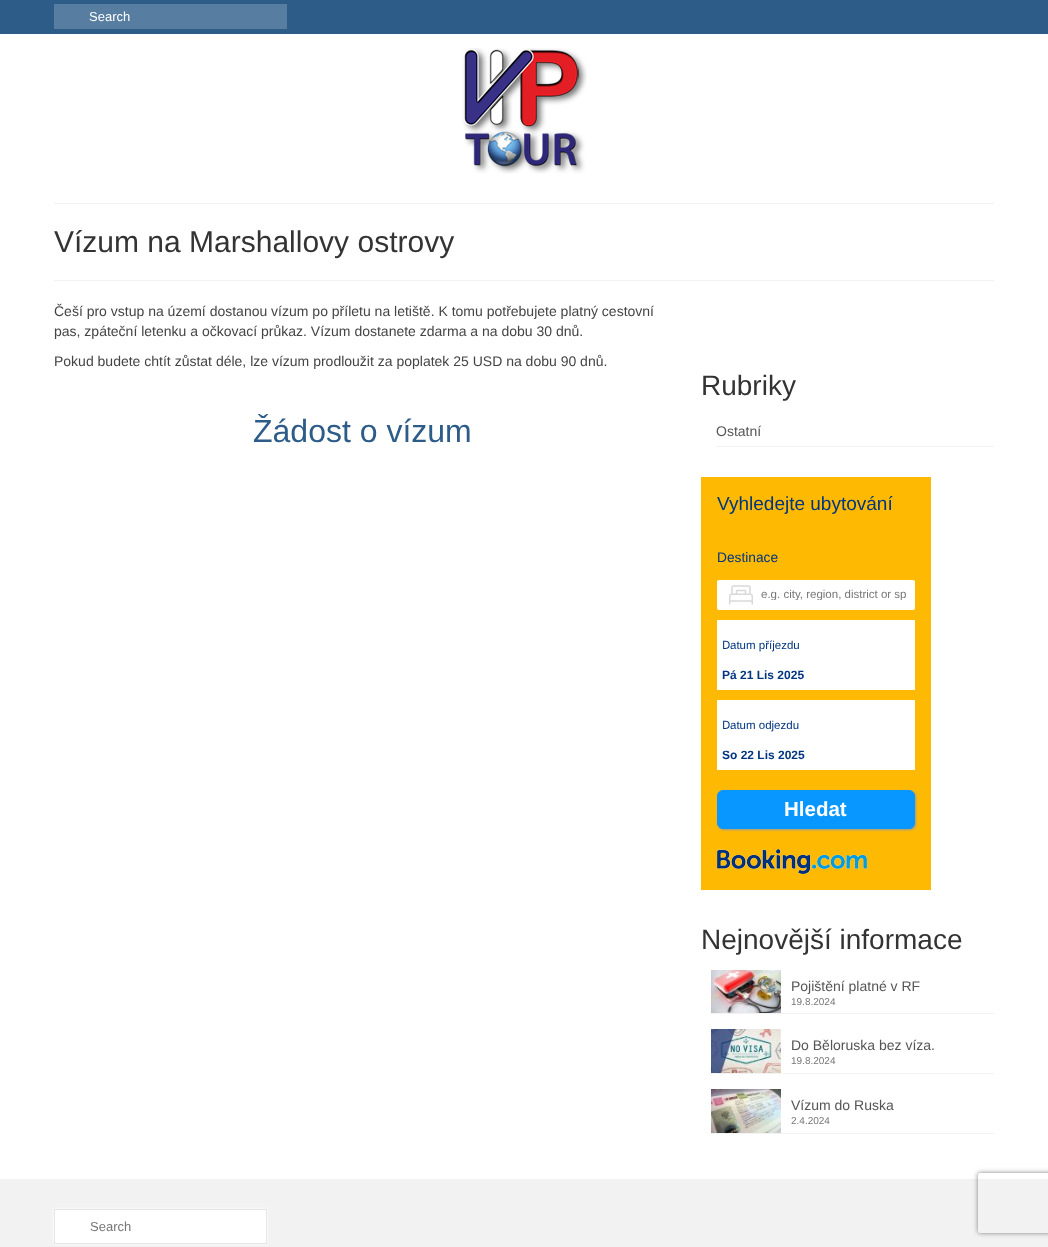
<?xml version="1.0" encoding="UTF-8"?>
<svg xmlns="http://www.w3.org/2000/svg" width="1048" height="1247">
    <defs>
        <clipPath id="clip1"><rect x="725" y="588" width="182" height="12"/></clipPath>
        <filter id="blur1" x="-50%" y="-200%" width="200%" height="500%"><feGaussianBlur stdDeviation="1"/></filter>
        <filter id="blur2" x="-50%" y="-200%" width="200%" height="500%"><feGaussianBlur stdDeviation="1.5"/></filter>
        <clipPath id="clip2"><path d="M 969 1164 H 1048 V 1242 H 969 Z M 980 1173 H 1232 C 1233 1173 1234 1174 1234 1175 V 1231 C 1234 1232 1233 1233 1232 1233 H 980 C 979 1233 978 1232 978 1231 V 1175 C 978 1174 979 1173 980 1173 Z" clip-rule="evenodd"/></clipPath>
        <filter id="blur3" x="-50%" y="-200%" width="200%" height="500%"><feGaussianBlur stdDeviation="2.5"/></filter>
    </defs>
    <rect width="100%" height="100%" fill="#FFFFFF"/>
    <rect x="0" y="0" width="1048" height="34" fill="#2D5C88"/>
    <rect x="54" y="4" width="233" height="25" fill="#577DA0"/>
    <text x="89" y="21" font-family="Liberation Sans" font-size="13" fill="#FFFFFF">Search</text>
    <image x="462" y="48" width="125" height="126" href="img_01.png"/>
    <rect x="54" y="203" width="940" height="1" fill="#F2F2F2"/>
    <rect x="54" y="280" width="940" height="1" fill="#F2F2F2"/>
    <text x="54" y="252" font-family="Liberation Sans" font-size="30" fill="#333333">Vízum na Marshallovy ostrovy</text>
    <text font-family="Liberation Sans" font-size="14" fill="#444444">
        <tspan x="54" y="316">Češí pro vstup na území dostanou vízum po příletu na letiště. K tomu potřebujete platný cestovní</tspan>
        <tspan x="54" y="336">pas, zpáteční letenku a očkovací průkaz. Vízum dostanete zdarma a na dobu 30 dnů.</tspan>
    </text>
    <text x="54" y="366" font-family="Liberation Sans" font-size="14" fill="#444444">Pokud budete chtít zůstat déle, lze vízum prodloužit za poplatek 25 USD na dobu 90 dnů.</text>
    <text x="253" y="442" font-family="Liberation Sans" font-size="32" fill="#2D5C88">Žádost o vízum</text>
    <text x="701" y="395" font-family="Liberation Sans" font-size="28" fill="#333333">Rubriky</text>
    <rect x="716" y="446" width="278" height="1" fill="#F2F2F2"/>
    <text x="716" y="436" font-family="Liberation Sans" font-size="14" fill="#555555">Ostatní</text>
    <rect x="701" y="477" width="230" height="413" fill="#FEBA02"/>
    <text x="717" y="510" font-family="Liberation Sans" font-size="19" fill="#003580">Vyhledejte ubytování</text>
    <text x="717" y="562" font-family="Liberation Sans" font-size="13.75" fill="#003580">Destinace</text>
    <rect x="717" y="580" width="198" height="30" rx="2" fill="#FFFFFF"/>
    <image x="729" y="585" width="24" height="20" href="img_02.png"/>
    <g clip-path="url(#clip1)">
        <text x="761" y="598" font-family="Liberation Sans" font-size="11.5" fill="#777777">e.g. city, region, district or sp</text>
    </g>
    <rect x="717" y="620" width="198" height="70" fill="#FFFFFF"/>
    <text x="722" y="649" font-family="Noto Sans" font-size="11.5" fill="#003580">D</text>
    <text x="730" y="649" font-family="Liberation Sans" font-size="11.5" fill="#003580">atum příjezdu</text>
    <text x="722" y="679" font-family="Liberation Sans" font-size="12" font-weight="700" fill="#003580">Pá 21 Lis 2025</text>
    <rect x="717" y="700" width="198" height="70" fill="#FFFFFF"/>
    <text x="722" y="729" font-family="Noto Sans" font-size="11.5" fill="#003580">D</text>
    <text x="730" y="729" font-family="Liberation Sans" font-size="11.5" fill="#003580">atum odjezdu</text>
    <text x="722" y="759" font-family="Liberation Sans" font-size="12" font-weight="700" fill="#003580">So 22 Lis 2025</text>
    <rect x="718" y="791" width="198" height="39" rx="6" fill="#999999" filter="url(#blur1)"/>
    <rect x="717.5" y="790.5" width="197" height="38" rx="5.5" fill="#0896FF" stroke="#0896FF"/>
    <text x="784" y="816" font-family="Liberation Sans" font-size="20.5" font-weight="700" fill="#FFFFFF">Hledat</text>
    <image x="717" y="849" width="150" height="25" href="img_03.png"/>
    <text x="701" y="949" font-family="Liberation Sans" font-size="28" fill="#333333">Nejnovější informace</text>
    <rect x="711" y="1013" width="283" height="1" fill="#F2F2F2"/>
    <image x="711" y="970" width="70" height="43" href="img_04.png"/>
    <text x="791" y="991" font-family="Liberation Sans" font-size="14" fill="#555555">Pojištění platné v RF</text>
    <text x="791" y="1005" font-family="Liberation Sans" font-size="10" fill="#777777">19.8.2024</text>
    <rect x="711" y="1073" width="283" height="1" fill="#F2F2F2"/>
    <image x="711" y="1029" width="70" height="44" href="img_05.png"/>
    <text x="791" y="1050" font-family="Liberation Sans" font-size="14" fill="#555555">Do Běloruska bez víza.</text>
    <text x="791" y="1064" font-family="Liberation Sans" font-size="10" fill="#777777">19.8.2024</text>
    <rect x="711" y="1133" width="283" height="1" fill="#F2F2F2"/>
    <image x="711" y="1089" width="70" height="44" href="img_06.png"/>
    <text x="791" y="1110" font-family="Liberation Sans" font-size="14" fill="#555555">Vízum do Ruska</text>
    <text x="791" y="1124" font-family="Liberation Sans" font-size="10" fill="#777777">2.4.2024</text>
    <rect x="0" y="1179" width="1048" height="68" fill="#F2F2F2"/>
    <rect x="54" y="1209" width="213" height="35" fill="#FFFFFF" filter="url(#blur2)"/>
    <rect x="54.5" y="1209.5" width="212" height="34" fill="#FFFFFF" stroke="#E7E7E7"/>
    <text x="90" y="1231" font-family="Liberation Sans" font-size="13" fill="#777777">Search</text>
    <g clip-path="url(#clip2)">
        <rect x="978" y="1173" width="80" height="60" rx="2" fill="#808080" filter="url(#blur3)"/>
    </g>
</svg>
